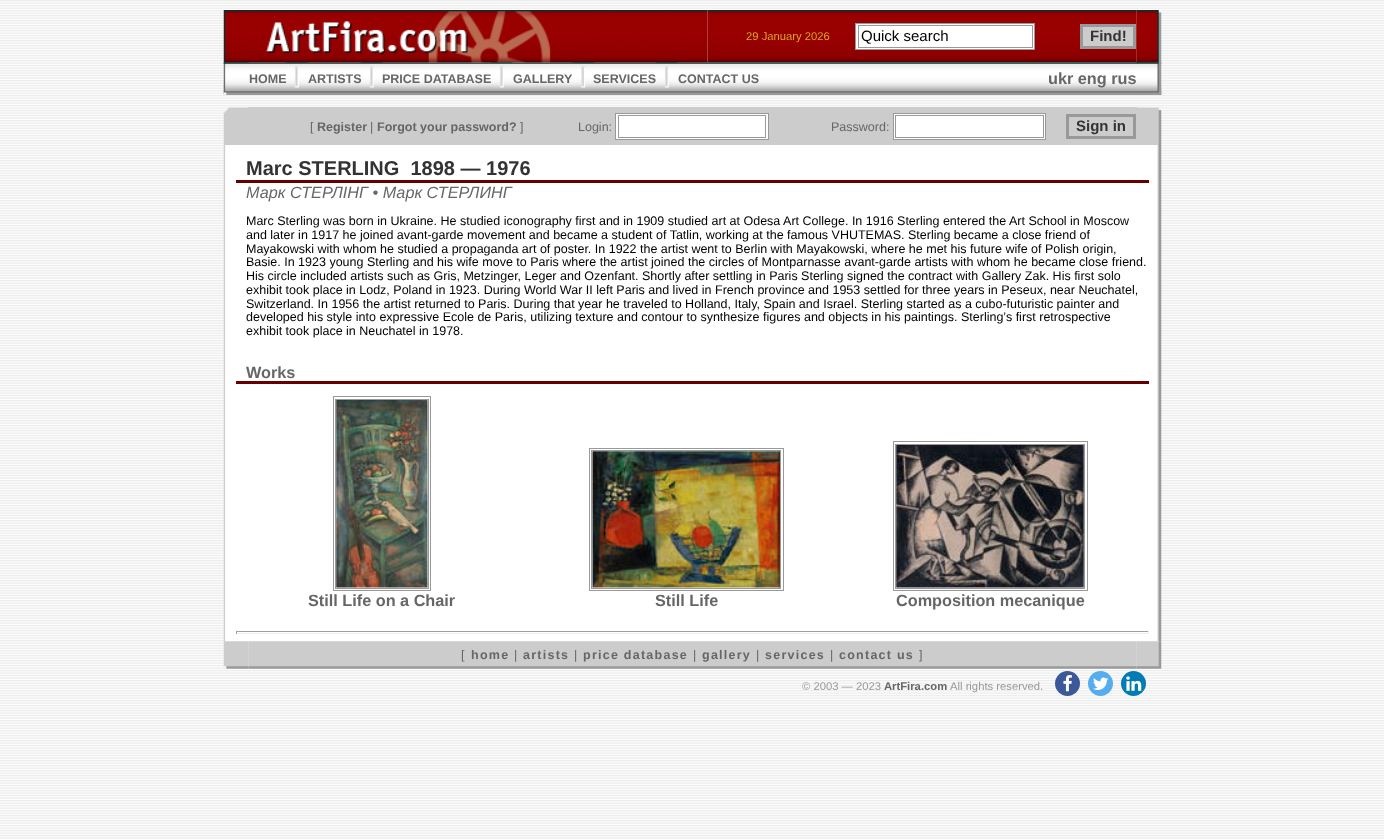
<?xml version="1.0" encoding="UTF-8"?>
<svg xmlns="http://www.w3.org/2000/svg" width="1384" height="840">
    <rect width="100%" height="100%" fill="#FFFFFF"/>
    <image x="0" y="0" width="1384" height="839" href="img_01.png"/>
    <image x="707" y="10" width="430" height="53" href="img_03.png"/>
    <image x="223" y="62" width="939" height="33" href="img_05.png"/>
    <image x="223" y="10" width="485" height="53" href="img_02.png"/>
    <text x="746" y="40" font-family="Liberation Sans" font-size="11.25" fill="#DAA520">29 January 2026</text>
    <rect x="855.5" y="23.5" width="179" height="26" fill="#FFFFFF" stroke="#999999"/>
    <rect x="858.5" y="25.5" width="174" height="22" fill="none" stroke="#999999"/>
    <text x="861" y="41" font-family="Liberation Sans" font-size="15" fill="#000000">Quick search</text>
    <rect x="1081.5" y="25.5" width="53" height="22" fill="#CCCCCC" stroke="#999999" stroke-width="3"/>
    <text x="1090" y="41" font-family="Liberation Sans" font-size="15" font-weight="700" fill="#333333">Find!</text>
    <image x="1136" y="10" width="26" height="53" href="img_04.png"/>
    <image x="223" y="62" width="26" height="33" href="img_06.png"/>
    <text x="249" y="83" font-family="Liberation Sans" font-size="12.5" font-weight="700" fill="#666666">HOME</text>
    <image x="286" y="62" width="22" height="26" href="img_07.png"/>
    <text x="308" y="83" font-family="Liberation Sans" font-size="12.5" font-weight="700" fill="#666666">ARTISTS</text>
    <image x="361" y="62" width="22" height="26" href="img_07.png"/>
    <text x="382" y="83" font-family="Liberation Sans" font-size="12.5" font-weight="700" fill="#666666">PRICE DATABASE</text>
    <image x="491" y="62" width="22" height="26" href="img_08.png"/>
    <text x="513" y="83" font-family="Liberation Sans" font-size="12.5" font-weight="700" fill="#666666">GALLERY</text>
    <image x="572" y="62" width="22" height="26" href="img_09.png"/>
    <text x="593" y="83" font-family="Liberation Sans" font-size="12.5" font-weight="700" fill="#666666">SERVICES</text>
    <image x="656" y="62" width="22" height="26" href="img_07.png"/>
    <text x="678" y="83" font-family="Liberation Sans" font-size="12.5" font-weight="700" fill="#666666">CONTACT US</text>
    <text x="1048" y="84" font-family="Liberation Sans" font-size="16.25" font-weight="700" fill="#666666">ukr eng rus</text>
    <image x="1136" y="62" width="26" height="33" href="img_10.png"/>
    <image x="223" y="107" width="25" height="38" href="img_11.png"/>
    <rect x="248" y="107" width="889" height="38" fill="#CCCCCC"/>
    <text x="310" y="131" font-family="Liberation Sans" font-size="12.5" fill="#666666">[</text>
    <text x="317" y="131" font-family="Liberation Sans" font-size="12.5" font-weight="700" fill="#666666">Register</text>
    <text x="370" y="131" font-family="Liberation Sans" font-size="12.5" fill="#666666">|</text>
    <text x="377" y="131" font-family="Liberation Sans" font-size="12.5" font-weight="700" fill="#666666">Forgot your password?</text>
    <text x="520" y="131" font-family="Liberation Sans" font-size="12.5" fill="#666666">]</text>
    <text x="578" y="131" font-family="Liberation Sans" font-size="12.5" fill="#666666">Login:</text>
    <rect x="615.5" y="113.5" width="153" height="26" fill="#FFFFFF" stroke="#999999"/>
    <rect x="618.5" y="115.5" width="147" height="22" fill="none" stroke="#999999"/>
    <text x="831" y="131" font-family="Liberation Sans" font-size="12.5" fill="#666666">Password:</text>
    <rect x="893.5" y="113.5" width="152" height="26" fill="#FFFFFF" stroke="#999999"/>
    <rect x="895.5" y="115.5" width="148" height="22" fill="none" stroke="#999999"/>
    <rect x="1067.5" y="115.5" width="67" height="22" fill="none" stroke="#999999" stroke-width="3"/>
    <text x="1076" y="131" font-family="Liberation Sans" font-size="15" font-weight="700" fill="#333333">Sign in</text>
    <image x="1137" y="107" width="25" height="38" href="img_12.png"/>
    <image x="223" y="145" width="939" height="497" href="img_13.png"/>
    <rect x="236" y="180" width="913" height="3" fill="#660000"/>
    <text x="246" y="175" font-family="Liberation Sans" font-size="20" font-weight="700" fill="#333333" xml:space="preserve">Marc STERLING  1898 — 1976</text>
    <text x="246" y="198" font-family="Liberation Sans" font-size="16.25" font-style="italic" fill="#666666">Марк СТЕРЛІНГ • Марк СТЕРЛИНГ</text>
    <text font-family="Liberation Sans" font-size="12.5" fill="#000000">
        <tspan x="246" y="225">Marc Sterling was born in Ukraine. He studied iconography first and in 1909 studied art at Odesa Art College. In 1916 Sterling entered the Art School in Moscow</tspan>
        <tspan x="246" y="239">and later in 1917 he joined avant-garde movement and became a student of Tatlin, working at the famous VHUTEMAS. Sterling became a close friend of</tspan>
        <tspan x="246" y="253">Mayakowski with whom he studied a propaganda art of poster. In 1922 the artist went to Berlin with Mayakowski, where he met his future wife of Polish origin,</tspan>
        <tspan x="246" y="266">Basie. In 1923 young Sterling and his wife move to Paris where the artist joined the circles of Montparnasse avant-garde artists with whom he became close friend.</tspan>
        <tspan x="246" y="280">His circle included artists such as Gris, Metzinger, Leger and Ozenfant. Shortly after settling in Paris Sterling signed the contract with Gallery Zak. His first solo</tspan>
        <tspan x="246" y="294">exhibit took place in Lodz, Poland in 1923. During World War II left Paris and lived in French province and 1953 settled for three years in Peseux, near Neuchatel,</tspan>
        <tspan x="246" y="308">Switzerland. In 1956 the artist returned to Paris. During that year he traveled to Holland, Italy, Spain and Israel. Sterling started as a cubo-futuristic painter and</tspan>
        <tspan x="246" y="321">developed his style into expressive Ecole de Paris, utilizing texture and contour to synthesize figures and objects in his paintings. Sterling’s first retrospective</tspan>
        <tspan x="246" y="335">exhibit took place in Neuchatel in 1978.</tspan>
    </text>
    <rect x="236" y="381" width="913" height="3" fill="#660000"/>
    <text x="246" y="378" font-family="Liberation Sans" font-size="16.25" font-weight="700" fill="#666666">Works</text>
    <rect x="333.5" y="396.5" width="97" height="194" fill="none" stroke="#999999"/>
    <rect x="335.5" y="399.5" width="93" height="189" fill="none" stroke="#999999"/>
    <image x="336" y="400" width="92" height="188" href="img_14.png"/>
    <text x="308" y="606" font-family="Liberation Sans" font-size="16.25" font-weight="700" fill="#666666">Still Life on a Chair</text>
    <rect x="589.5" y="448.5" width="194" height="142" fill="none" stroke="#999999"/>
    <rect x="591.5" y="450.5" width="189" height="138" fill="none" stroke="#999999"/>
    <image x="592" y="451" width="188" height="137" href="img_15.png"/>
    <text x="655" y="606" font-family="Liberation Sans" font-size="16.25" font-weight="700" fill="#666666">Still Life</text>
    <rect x="893.5" y="441.5" width="194" height="149" fill="none" stroke="#999999"/>
    <rect x="895.5" y="444.5" width="189" height="144" fill="none" stroke="#999999"/>
    <image x="896" y="445" width="188" height="143" href="img_16.png"/>
    <text x="896" y="606" font-family="Liberation Sans" font-size="16.25" font-weight="700" fill="#666666">Composition mecanique</text>
    <rect x="236" y="631" width="913" height="1" fill="#9F9F9F"/>
    <rect x="1148" y="631" width="1" height="3" fill="#EEEEEE"/>
    <rect x="236" y="633" width="913" height="1" fill="#EEEEEE"/>
    <rect x="236" y="631" width="1" height="3" fill="#9F9F9F"/>
    <image x="248" y="641" width="889" height="28" href="img_18.png"/>
    <image x="223" y="641" width="26" height="28" href="img_17.png"/>
    <text x="461" y="659" font-family="Liberation Sans" font-size="12.5" letter-spacing="1.25" fill="#666666">[</text>
    <text x="471" y="659" font-family="Liberation Sans" font-size="12.5" font-weight="700" letter-spacing="1.25" fill="#666666">home</text>
    <text x="514" y="659" font-family="Liberation Sans" font-size="12.5" letter-spacing="1.25" fill="#666666">|</text>
    <text x="523" y="659" font-family="Liberation Sans" font-size="12.5" font-weight="700" letter-spacing="1.25" fill="#666666">artists</text>
    <text x="574" y="659" font-family="Liberation Sans" font-size="12.5" letter-spacing="1.25" fill="#666666">|</text>
    <text x="583" y="659" font-family="Liberation Sans" font-size="12.5" font-weight="700" letter-spacing="1.25" fill="#666666">price database</text>
    <text x="693" y="659" font-family="Liberation Sans" font-size="12.5" letter-spacing="1.25" fill="#666666">|</text>
    <text x="702" y="659" font-family="Liberation Sans" font-size="12.5" font-weight="700" letter-spacing="1.25" fill="#666666">gallery</text>
    <text x="756" y="659" font-family="Liberation Sans" font-size="12.5" letter-spacing="1.25" fill="#666666">|</text>
    <text x="765" y="659" font-family="Liberation Sans" font-size="12.5" font-weight="700" letter-spacing="1.25" fill="#666666">services</text>
    <text x="830" y="659" font-family="Liberation Sans" font-size="12.5" letter-spacing="1.25" fill="#666666">|</text>
    <text x="839" y="659" font-family="Liberation Sans" font-size="12.5" font-weight="700" letter-spacing="1.25" fill="#666666">contact us</text>
    <text x="919" y="659" font-family="Liberation Sans" font-size="12.5" letter-spacing="1.25" fill="#666666">]</text>
    <image x="1136" y="641" width="26" height="28" href="img_19.png"/>
    <text x="802" y="690" font-family="Liberation Sans" font-size="11.25" fill="#999999">© 2003 — 2023</text>
    <text x="884" y="690" font-family="Liberation Sans" font-size="11.25" font-weight="700" fill="#666666">ArtFira.com</text>
    <text x="950" y="690" font-family="Liberation Sans" font-size="11.25" fill="#999999">All rights reserved.</text>
    <circle cx="1067.5" cy="683.5" r="12.5" fill="#3B5998"/>
    <image x="1063" y="675" width="9" height="17" href="img_20.png"/>
    <circle cx="1100.5" cy="683.5" r="12.5" fill="#55ACEE"/>
    <image x="1093" y="677" width="16" height="13" href="img_21.png"/>
    <circle cx="1133.5" cy="683.5" r="12.5" fill="#007BB5"/>
    <image x="1126" y="676" width="16" height="15" href="img_22.png"/>
</svg>
